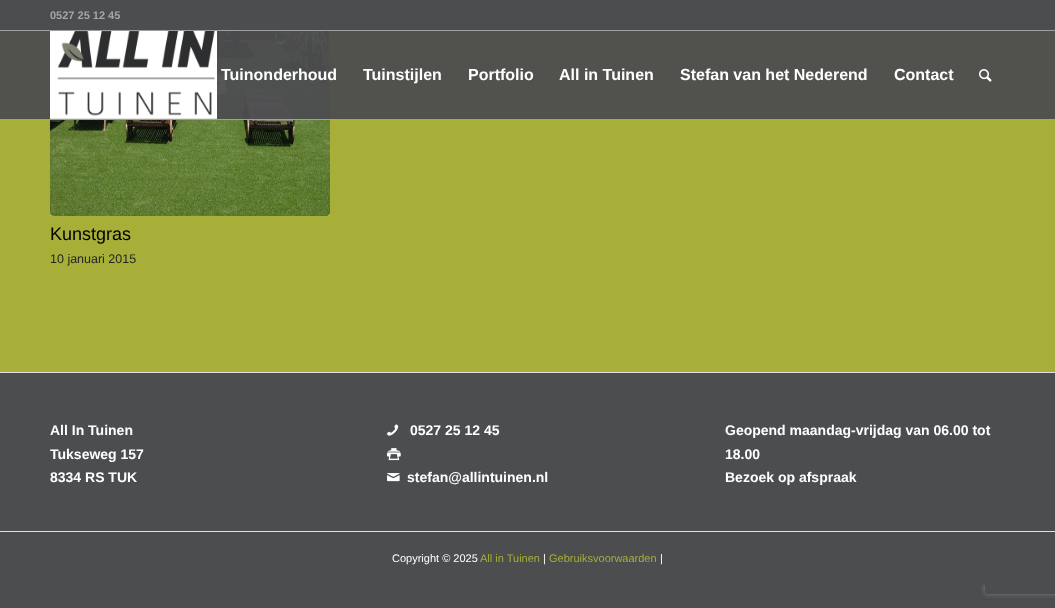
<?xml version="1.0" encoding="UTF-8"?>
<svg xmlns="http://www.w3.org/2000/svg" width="1055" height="608">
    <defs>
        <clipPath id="clip1"><path d="M 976 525 H 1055 V 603 H 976 Z M 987 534 H 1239 C 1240 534 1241 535 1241 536 V 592 C 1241 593 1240 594 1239 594 H 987 C 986 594 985 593 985 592 V 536 C 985 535 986 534 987 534 Z" clip-rule="evenodd"/></clipPath>
        <filter id="blur1" x="-50%" y="-200%" width="200%" height="500%"><feGaussianBlur stdDeviation="2.5"/></filter>
    </defs>
    <rect width="100%" height="100%" fill="#4C4D4F"/>
    <rect x="0" y="31" width="1055" height="341" fill="#A7AF38"/>
    <rect x="50" y="-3" width="280" height="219" rx="3" fill="#F8F8F8"/>
    <rect x="50" y="0" width="280" height="30" fill="#4C4D4F"/>
    <rect x="0" y="30" width="1055" height="1" fill="#9E9FA3"/>
    <text x="50" y="19" font-family="Liberation Sans" font-size="11" font-weight="700" fill="#A6A6A7">0527 25 12 45</text>
    <image x="50" y="31" width="280" height="185" href="img_03.png"/>
    <rect x="0" y="31" width="1055" height="88" fill="#4C4D4F" fill-opacity="0.95"/>
    <rect x="0" y="119" width="1055" height="1" fill="#9E9FA3"/>
    <image x="50" y="31" width="167" height="88" href="img_01.png"/>
    <text x="221" y="80" font-family="Liberation Sans" font-size="16" font-weight="700" fill="#FFFFFF">Tuinonderhoud</text>
    <text x="363" y="80" font-family="Liberation Sans" font-size="16" font-weight="700" fill="#FFFFFF">Tuinstijlen</text>
    <text x="468" y="80" font-family="Liberation Sans" font-size="16" font-weight="700" fill="#FFFFFF">Portfolio</text>
    <text x="559" y="80" font-family="Liberation Sans" font-size="16" font-weight="700" fill="#FFFFFF">All in Tuinen</text>
    <text x="680" y="80" font-family="Liberation Sans" font-size="16" font-weight="700" fill="#FFFFFF">Stefan van het Nederend</text>
    <text x="894" y="80" font-family="Liberation Sans" font-size="16" font-weight="700" fill="#FFFFFF">Contact</text>
    <image x="979" y="69" width="13" height="13" href="img_02.png"/>
    <text x="50" y="240" font-family="Liberation Sans" font-size="18" fill="#000000">Kunstgras</text>
    <text x="50" y="263" font-family="Liberation Sans" font-size="12.5" fill="#222722">10 januari 2015</text>
    <g clip-path="url(#clip1)">
        <rect x="985" y="534" width="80" height="60" rx="2" fill="#808080" filter="url(#blur1)"/>
    </g>
    <rect x="986" y="530" width="69" height="1" fill="#4C4D4F"/>
    <rect x="0" y="372" width="1055" height="1" fill="#E1E1E1"/>
    <text font-family="Liberation Sans" font-size="14" font-weight="700" fill="#FFFFFF">
        <tspan x="50" y="435">All In Tuinen</tspan>
        <tspan x="50" y="459">Tukseweg 157</tspan>
        <tspan x="50" y="482">8334 RS TUK</tspan>
    </text>
    <image x="387" y="424" width="12" height="12" href="img_04.png"/>
    <text x="410" y="435" font-family="Liberation Sans" font-size="14" font-weight="700" fill="#FFFFFF">0527 25 12 45</text>
    <image x="387" y="448" width="14" height="13" href="img_05.png"/>
    <image x="387" y="473" width="13" height="9" href="img_06.png"/>
    <text x="407" y="482" font-family="Liberation Sans" font-size="14" font-weight="700" fill="#FFFFFF">stefan@allintuinen.nl</text>
    <text font-family="Liberation Sans" font-size="14" font-weight="700" fill="#FFFFFF">
        <tspan x="725" y="435">Geopend maandag-vrijdag van 06.00 tot</tspan>
        <tspan x="725" y="459">18.00</tspan>
        <tspan x="725" y="482">Bezoek op afspraak</tspan>
    </text>
    <rect x="981" y="532" width="74" height="53" fill="#4C4D4F"/>
    <rect x="0" y="531" width="1055" height="1" fill="#E1E1E1"/>
    <text x="392" y="562" font-family="Liberation Sans" font-size="11" fill="#FFFFFF">Copyright © 2025</text>
    <text x="480" y="562" font-family="Liberation Sans" font-size="11" fill="#A7AF38">All in Tuinen</text>
    <text x="543" y="562" font-family="Liberation Sans" font-size="11" fill="#FFFFFF">|</text>
    <text x="549" y="562" font-family="Liberation Sans" font-size="11" fill="#A7AF38">Gebruiksvoorwaarden</text>
    <text x="660" y="562" font-family="Liberation Sans" font-size="11" fill="#FFFFFF">|</text>
</svg>
